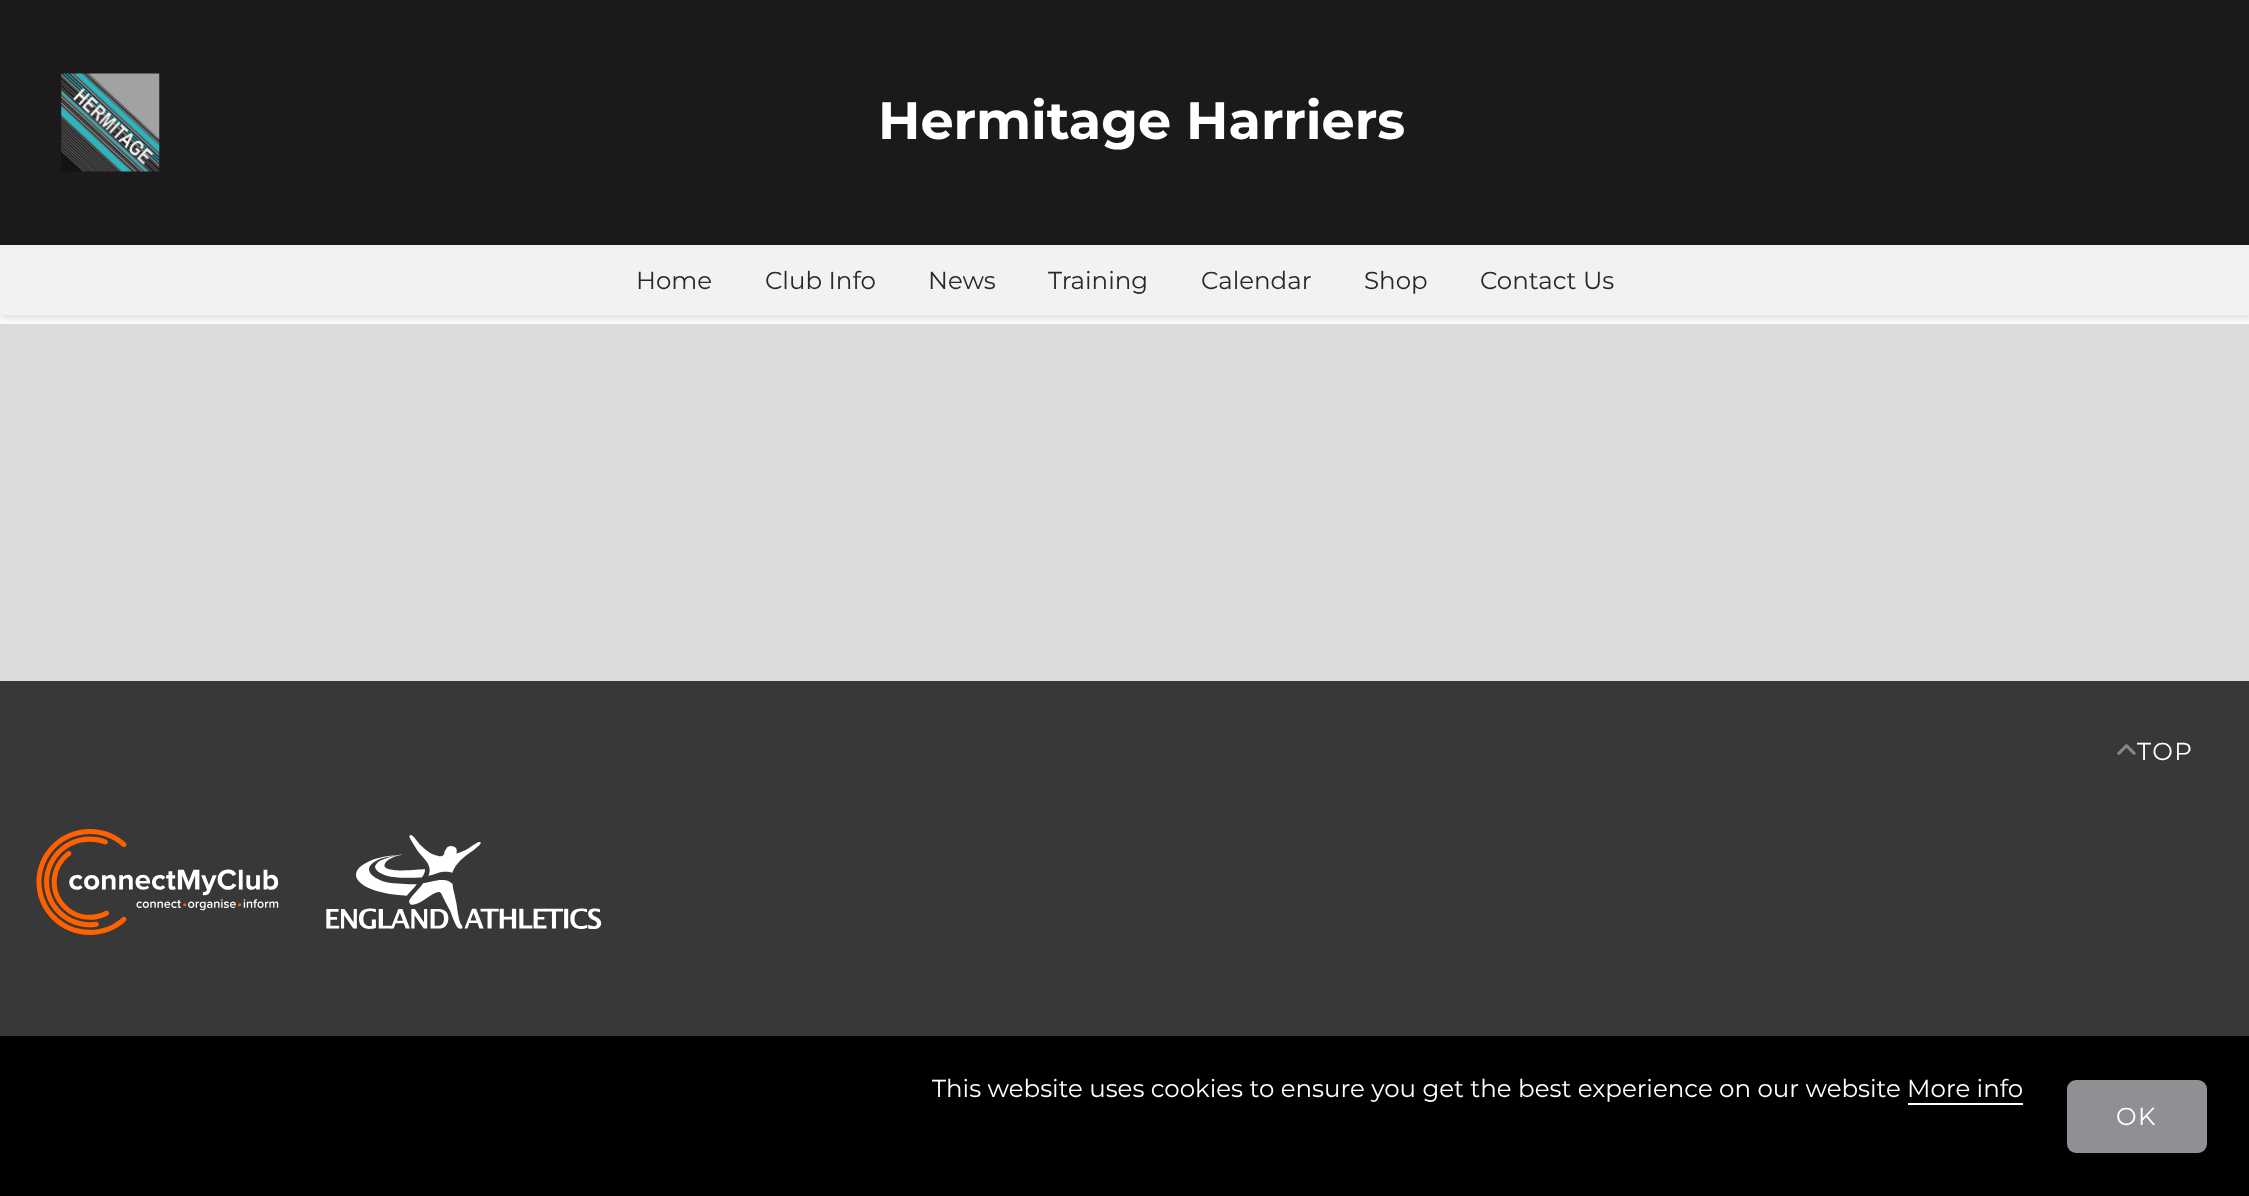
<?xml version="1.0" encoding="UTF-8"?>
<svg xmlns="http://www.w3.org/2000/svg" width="2249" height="1196">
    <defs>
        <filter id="blur1" x="-50%" y="-200%" width="200%" height="500%"><feGaussianBlur stdDeviation="3.5"/></filter>
    </defs>
    <rect width="100%" height="100%" fill="#FFFFFF"/>
    <rect x="0" y="0" width="2249" height="245" fill="#1B191A"/>
    <image x="61" y="73" width="99" height="99" href="img_01.png"/>
    <text x="878" y="139" font-family="Montserrat" font-size="52.5" font-weight="700" fill="#FFFFFF">Hermitage Harriers</text>
    <rect x="0" y="324" width="2249" height="357" fill="#DEDCDB"/>
    <rect x="0" y="249" width="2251" height="70" fill="#000000" fill-opacity="0.12" filter="url(#blur1)"/>
    <rect x="0" y="245" width="2249" height="70" fill="#F2F2F2"/>
    <text x="636" y="289" font-family="Montserrat" font-size="24.5" fill="#282828">Home</text>
    <text x="765" y="289" font-family="Montserrat" font-size="24.5" fill="#282828">Club Info</text>
    <text x="928" y="289" font-family="Montserrat" font-size="24.5" fill="#282828">News</text>
    <text x="1048" y="289" font-family="Montserrat" font-size="24.5" fill="#282828">Training</text>
    <text x="1201" y="289" font-family="Montserrat" font-size="24.5" fill="#282828">Calendar</text>
    <text x="1364" y="289" font-family="Montserrat" font-size="24.5" fill="#282828">Shop</text>
    <text x="1480" y="289" font-family="Montserrat" font-size="24.5" fill="#282828">Contact Us</text>
    <rect x="0" y="681" width="2249" height="355" fill="#383838"/>
    <image x="2117" y="744" width="19" height="11" href="img_02.png"/>
    <text x="2137" y="760" font-family="Montserrat" font-size="24.5" letter-spacing="1.5" fill="#FFFFFF">TOP</text>
    <image x="36" y="829" width="243" height="106" href="img_03.png"/>
    <image x="326" y="835" width="276" height="94" href="img_04.png"/>
    <rect x="0" y="1036" width="2249" height="160" fill="#000000"/>
    <text x="932" y="1097" font-family="Montserrat" font-size="24.5" fill="#FFFFFF">This website uses cookies to ensure you get the best experience on our website More info</text>
    <rect x="1908" y="1103" width="115" height="2" fill="#FFFFFF"/>
    <rect x="2067" y="1080" width="140" height="73" rx="9" fill="#8F9093"/>
    <text x="2116" y="1125" font-family="Montserrat" font-size="24.5" letter-spacing="1.5" fill="#FFFFFF">OK</text>
</svg>
